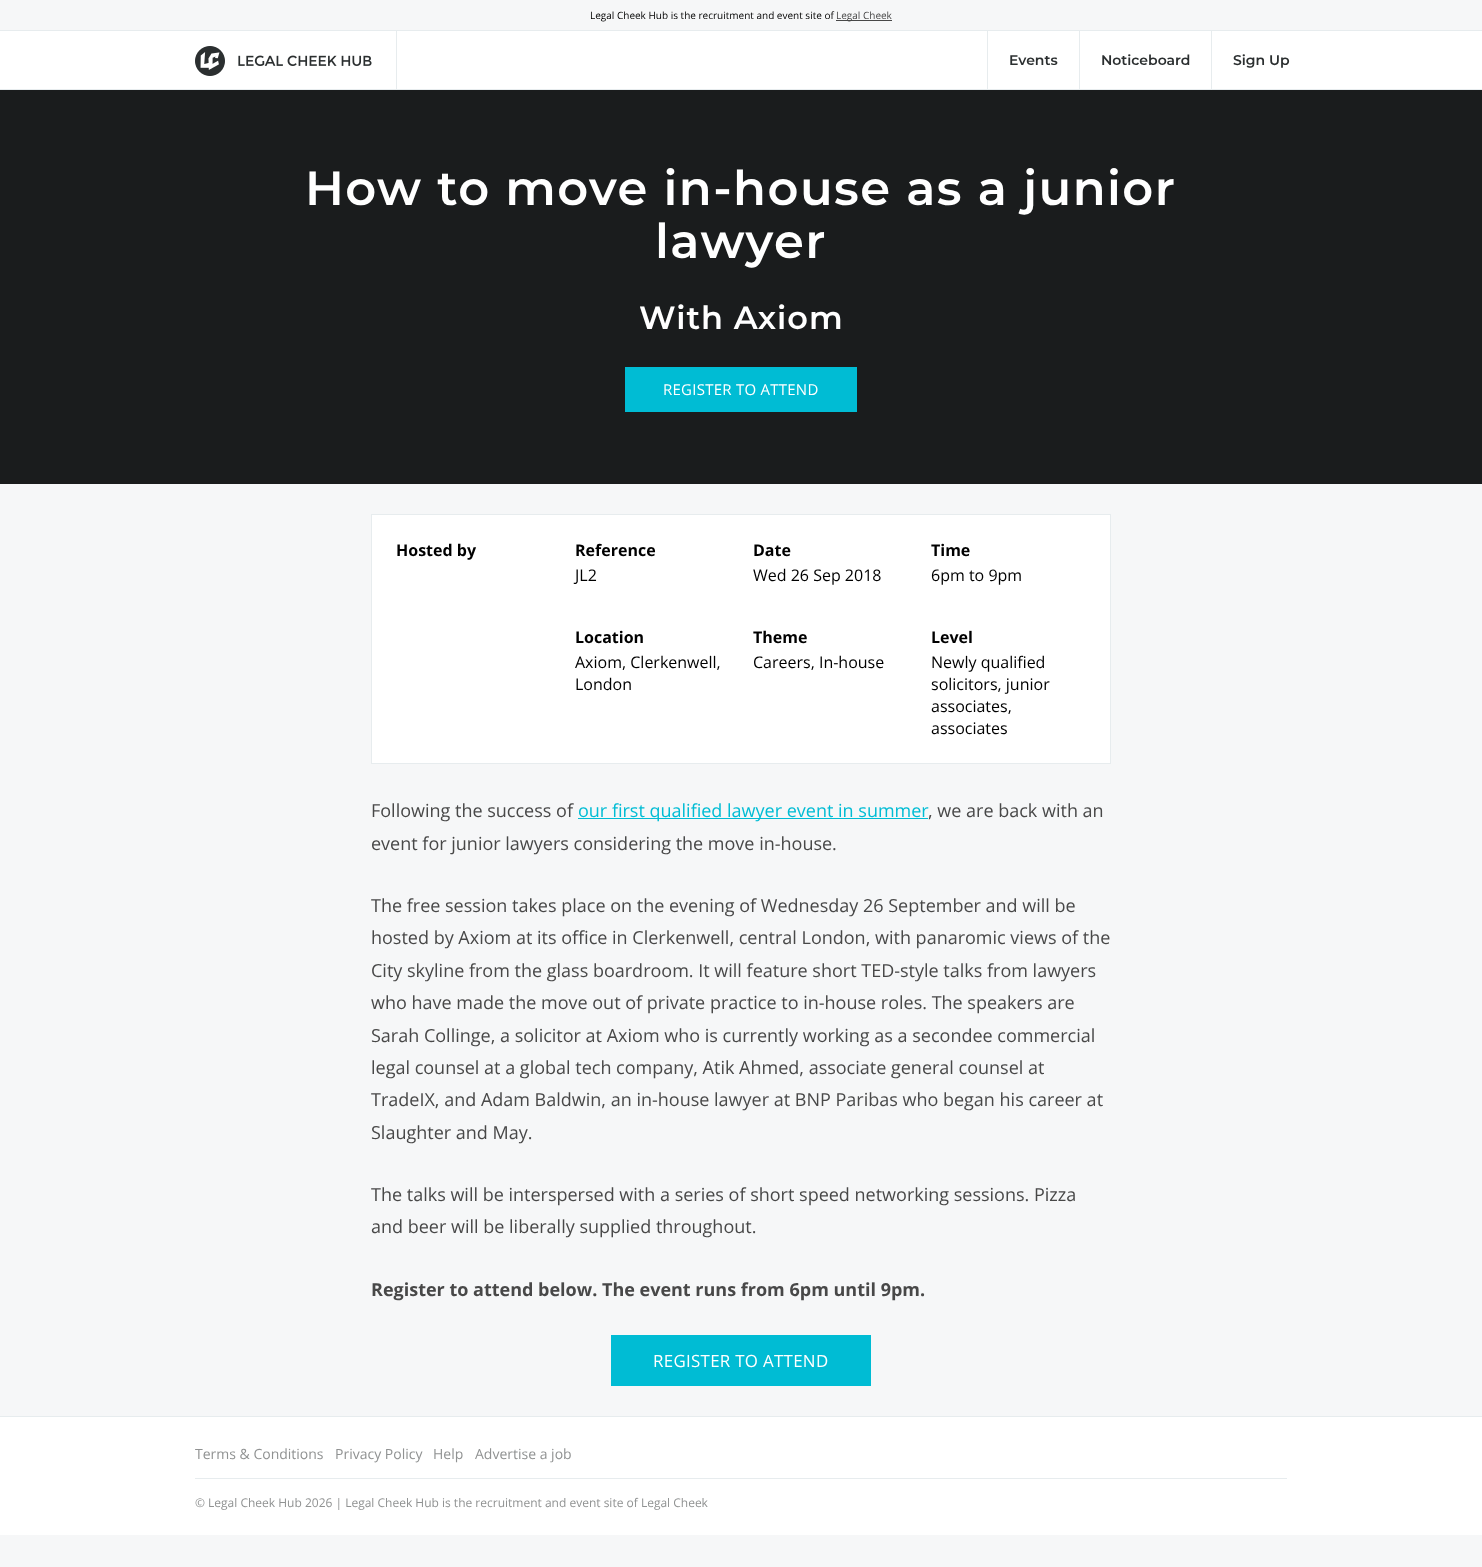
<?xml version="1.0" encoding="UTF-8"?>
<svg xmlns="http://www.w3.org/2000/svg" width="1482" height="1567">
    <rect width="100%" height="100%" fill="#F6F7F8"/>
    <text x="590" y="19" font-family="Open Sans" font-size="10" fill="#000000">Legal Cheek Hub is the recruitment and event site of</text>
    <rect x="836" y="20" width="56" height="1" fill="#484848"/>
    <text x="836" y="19" font-family="Open Sans" font-size="10" fill="#484848">Legal Cheek</text>
    <rect x="0" y="31" width="1482" height="58" fill="#FFFFFF"/>
    <rect x="0" y="30" width="1482" height="1" fill="#E7ECEE"/>
    <rect x="0" y="89" width="1482" height="1" fill="#E7ECEE"/>
    <rect x="396" y="31" width="1" height="59" fill="#E7ECEE"/>
    <image x="195" y="46" width="177" height="30" href="img_01.png"/>
    <rect x="987" y="31" width="1" height="59" fill="#E7ECEE"/>
    <text x="1009" y="65" font-family="Montserrat" font-size="14" font-weight="600" fill="#2B2F30">Events</text>
    <rect x="1079" y="31" width="1" height="59" fill="#E7ECEE"/>
    <text x="1101" y="65" font-family="Montserrat" font-size="14" font-weight="600" fill="#2B2F30">Noticeboard</text>
    <rect x="1211" y="31" width="1" height="59" fill="#E7ECEE"/>
    <text x="1233" y="65" font-family="Montserrat" font-size="14" font-weight="600" fill="#2B2F30">Sign Up</text>
    <rect x="0" y="90" width="1482" height="394" fill="#1A1C1D"/>
    <text x="305" y="205" font-family="Montserrat" font-size="48" font-weight="600" letter-spacing="1.45" fill="#FFFFFF">How to move in-house as a junior</text>
    <text x="655" y="258" font-family="Montserrat" font-size="48" font-weight="600" letter-spacing="1.45" fill="#FFFFFF">lawyer</text>
    <text x="639" y="329" font-family="Montserrat" font-size="32" font-weight="600" letter-spacing="1" fill="#FFFFFF">With Axiom</text>
    <rect x="625" y="367" width="232" height="45" fill="#00BCD4"/>
    <text x="663" y="395" font-family="Open Sans" font-size="15" letter-spacing="0.25" fill="#FFFFFF">REGISTER TO ATTEND</text>
    <rect x="371.5" y="514.5" width="739" height="249" fill="#FFFFFF" stroke="#E7ECEE"/>
    <text x="396" y="556" font-family="Open Sans" font-size="16" font-weight="700" fill="#000000">Hosted by</text>
    <text x="575" y="556" font-family="Open Sans" font-size="16" font-weight="700" fill="#000000">Reference</text>
    <text x="575" y="581" font-family="Open Sans" font-size="16" fill="#000000">JL2</text>
    <text x="753" y="556" font-family="Open Sans" font-size="16" font-weight="700" fill="#000000">Date</text>
    <text x="753" y="581" font-family="Open Sans" font-size="16" fill="#000000">Wed 26 Sep 2018</text>
    <text x="931" y="556" font-family="Open Sans" font-size="16" font-weight="700" fill="#000000">Time</text>
    <text x="931" y="581" font-family="Open Sans" font-size="16" fill="#000000">6pm to 9pm</text>
    <text x="575" y="643" font-family="Open Sans" font-size="16" font-weight="700" fill="#000000">Location</text>
    <text font-family="Open Sans" font-size="16" fill="#000000">
        <tspan x="575" y="668">Axiom, Clerkenwell,</tspan>
        <tspan x="575" y="690">London</tspan>
    </text>
    <text x="753" y="643" font-family="Open Sans" font-size="16" font-weight="700" fill="#000000">Theme</text>
    <text x="753" y="668" font-family="Open Sans" font-size="16" fill="#000000">Careers, In-house</text>
    <text x="931" y="643" font-family="Open Sans" font-size="16" font-weight="700" fill="#000000">Level</text>
    <text font-family="Open Sans" font-size="16" fill="#000000">
        <tspan x="931" y="668">Newly qualified</tspan>
        <tspan x="931" y="690">solicitors, junior</tspan>
        <tspan x="931" y="712">associates,</tspan>
        <tspan x="931" y="734">associates</tspan>
    </text>
    <text x="371" y="817" font-family="Open Sans" font-size="18" fill="#484848">Following the success of</text>
    <rect x="578" y="818" width="350" height="1" fill="#00BCD4"/>
    <text x="578" y="817" font-family="Open Sans" font-size="18" fill="#00BCD4">our first qualified lawyer event in summer</text>
    <text x="928" y="817" font-family="Open Sans" font-size="18" fill="#484848">, we are back with an</text>
    <text x="371" y="850" font-family="Open Sans" font-size="18" fill="#484848">event for junior lawyers considering the move in-house.</text>
    <text font-family="Open Sans" font-size="18" fill="#484848">
        <tspan x="371" y="912">The free session takes place on the evening of Wednesday 26 September and will be</tspan>
        <tspan x="371" y="944">hosted by Axiom at its office in Clerkenwell, central London, with panaromic views of the</tspan>
        <tspan x="371" y="977">City skyline from the glass boardroom. It will feature short TED-style talks from lawyers</tspan>
        <tspan x="371" y="1009">who have made the move out of private practice to in-house roles. The speakers are</tspan>
        <tspan x="371" y="1042">Sarah Collinge, a solicitor at Axiom who is currently working as a secondee commercial</tspan>
        <tspan x="371" y="1074">legal counsel at a global tech company, Atik Ahmed, associate general counsel at</tspan>
        <tspan x="371" y="1106">TradeIX, and Adam Baldwin, an in-house lawyer at BNP Paribas who began his career at</tspan>
        <tspan x="371" y="1139">Slaughter and May.</tspan>
    </text>
    <text font-family="Open Sans" font-size="18" fill="#484848">
        <tspan x="371" y="1201">The talks will be interspersed with a series of short speed networking sessions. Pizza</tspan>
        <tspan x="371" y="1233">and beer will be liberally supplied throughout.</tspan>
    </text>
    <text x="371" y="1296" font-family="Open Sans" font-size="18" font-weight="700" fill="#484848">Register to attend below. The event runs from 6pm until 9pm.</text>
    <rect x="611" y="1335" width="260" height="51" fill="#00BCD4"/>
    <text x="653" y="1367" font-family="Open Sans" font-size="16.9" letter-spacing="0.3" fill="#FFFFFF">REGISTER TO ATTEND</text>
    <rect x="0" y="1417" width="1482" height="118" fill="#FFFFFF"/>
    <rect x="0" y="1416" width="1482" height="1" fill="#E7ECEE"/>
    <text x="195" y="1459" font-family="Open Sans" font-size="14" fill="#909292">Terms &amp; Conditions</text>
    <text x="335" y="1459" font-family="Open Sans" font-size="14" fill="#909292">Privacy Policy</text>
    <text x="433" y="1459" font-family="Open Sans" font-size="14" fill="#909292">Help</text>
    <text x="475" y="1459" font-family="Open Sans" font-size="14" fill="#909292">Advertise a job</text>
    <rect x="195" y="1478" width="1092" height="1" fill="#E7ECEE"/>
    <text x="195" y="1507" font-family="Open Sans" font-size="12" fill="#909292">© Legal Cheek Hub 2026 | Legal Cheek Hub is the recruitment and event site of Legal Cheek</text>
</svg>
